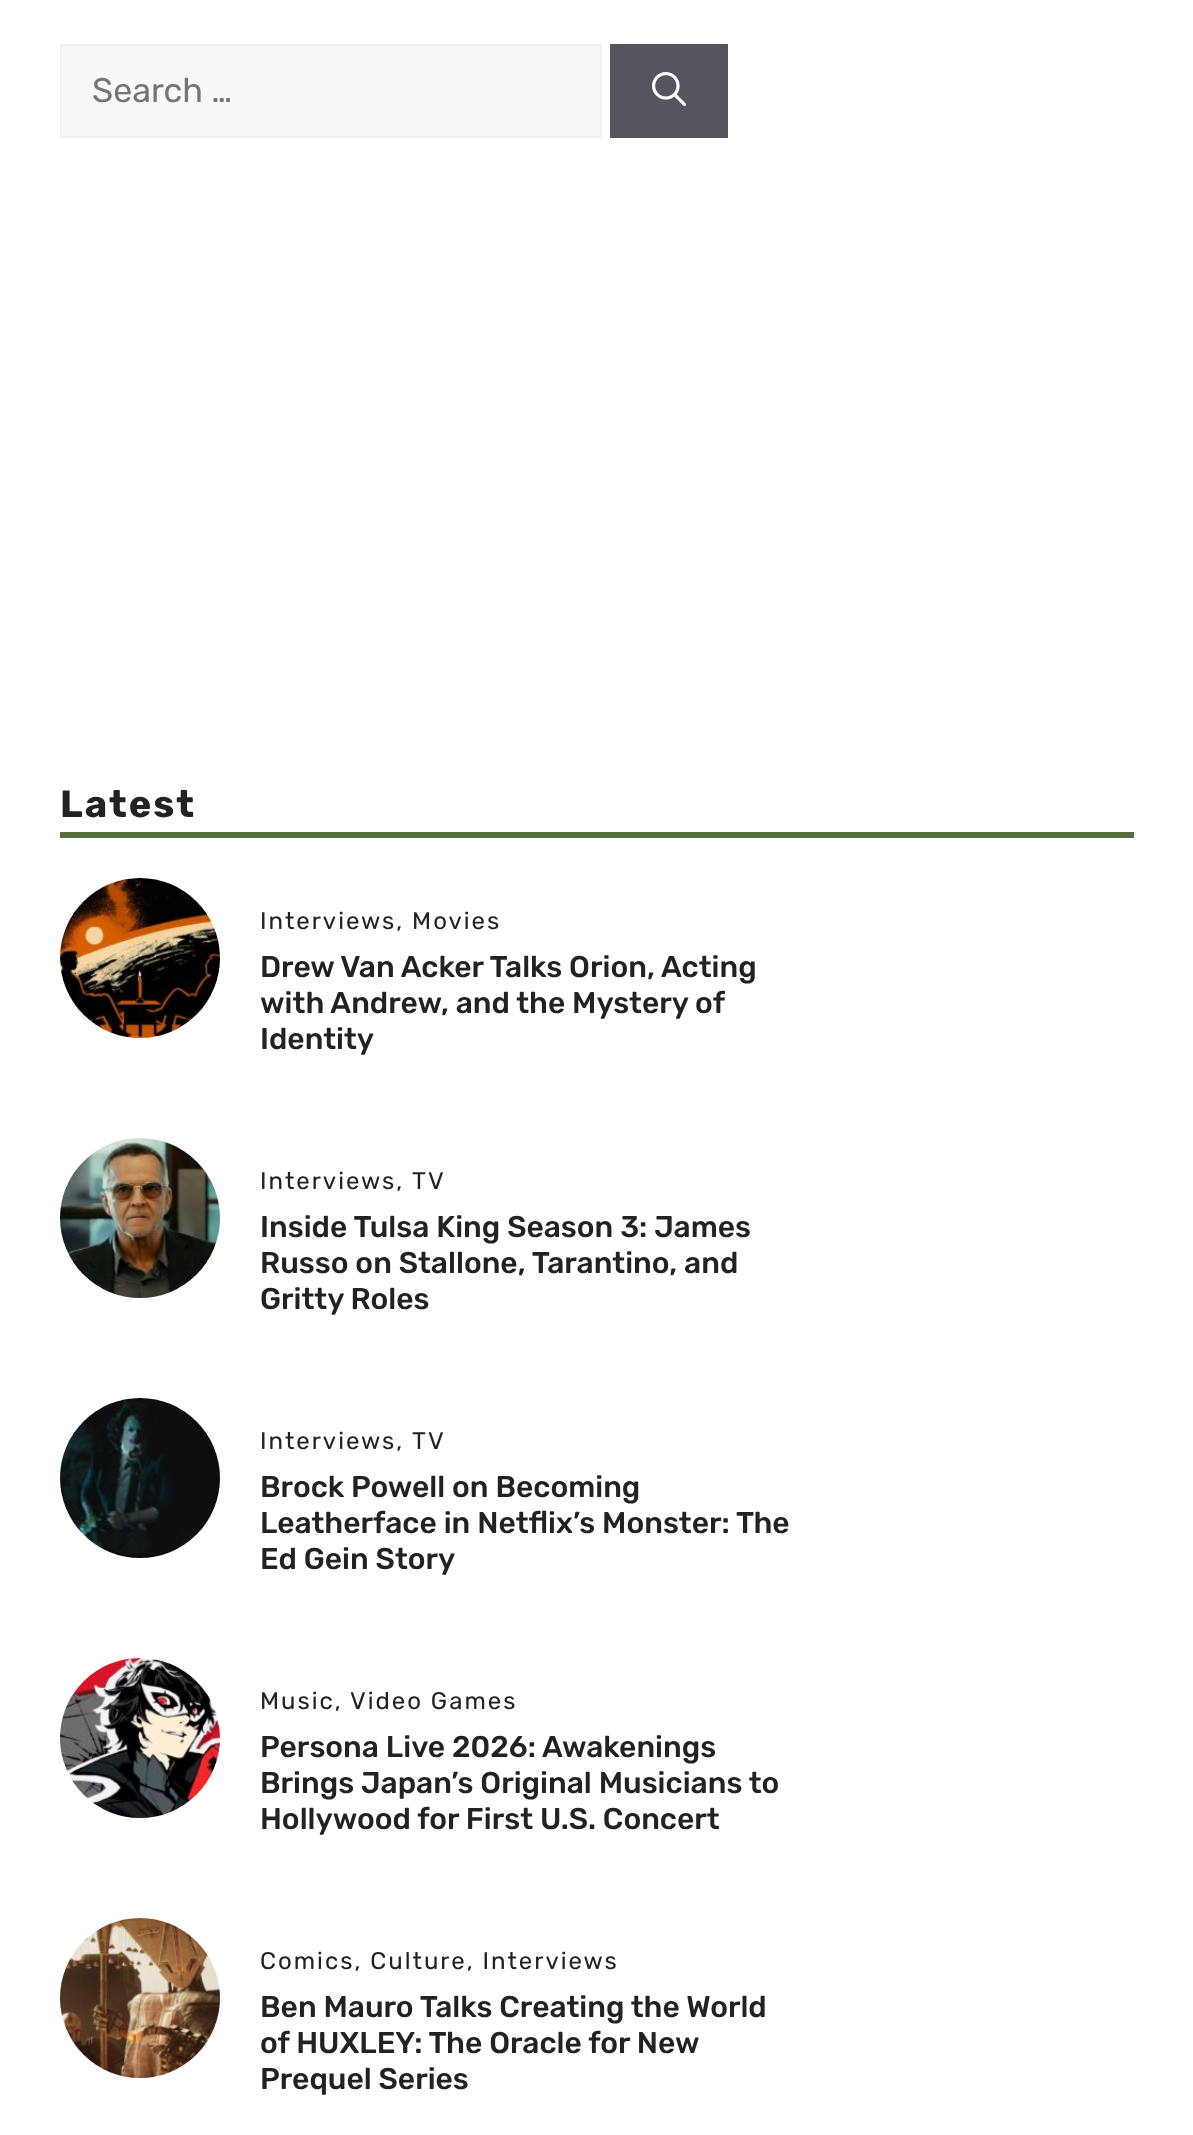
<?xml version="1.0" encoding="UTF-8"?>
<svg xmlns="http://www.w3.org/2000/svg" width="1193" height="2135">
    <rect width="100%" height="100%" fill="#FFFFFF"/>
    <rect x="61" y="45" width="540" height="92" fill="#F7F8F9" stroke="#F0F0F0" stroke-width="2"/>
    <text x="92" y="102" font-family="Rubik" font-size="34" fill="#757575">Search …</text>
    <rect x="610" y="44" width="118" height="94" fill="#55555E"/>
    <image x="652" y="72" width="34" height="34" href="img_01.png"/>
    <text x="60" y="817" font-family="Rubik" font-size="38" font-weight="700" letter-spacing="2" fill="#222222">Latest</text>
    <rect x="60" y="832" width="1074" height="6" fill="#566E3D"/>
    <image x="60" y="878" width="160" height="160" href="img_02.png"/>
    <text x="260" y="929" font-family="Rubik" font-size="24" letter-spacing="2" fill="#222222">Interviews, Movies</text>
    <text font-family="Rubik" font-size="30" font-weight="500" fill="#222222">
        <tspan x="260" y="977">Drew Van Acker Talks Orion, Acting</tspan>
        <tspan x="260" y="1013">with Andrew, and the Mystery of</tspan>
        <tspan x="260" y="1049">Identity</tspan>
    </text>
    <image x="60" y="1138" width="160" height="160" href="img_03.png"/>
    <text x="260" y="1189" font-family="Rubik" font-size="24" letter-spacing="2" fill="#222222">Interviews,</text>
    <text x="412" y="1189" font-family="Rubik" font-size="24" letter-spacing="2" fill="#222222">TV</text>
    <text font-family="Rubik" font-size="30" font-weight="500" fill="#222222">
        <tspan x="260" y="1237">Inside Tulsa King Season 3: James</tspan>
        <tspan x="260" y="1273">Russo on Stallone, Tarantino, and</tspan>
        <tspan x="260" y="1309">Gritty Roles</tspan>
    </text>
    <image x="60" y="1398" width="160" height="160" href="img_04.png"/>
    <text x="260" y="1449" font-family="Rubik" font-size="24" letter-spacing="2" fill="#222222">Interviews,</text>
    <text x="412" y="1449" font-family="Rubik" font-size="24" letter-spacing="2" fill="#222222">TV</text>
    <text font-family="Rubik" font-size="30" font-weight="500" fill="#222222">
        <tspan x="260" y="1497">Brock Powell on Becoming</tspan>
        <tspan x="260" y="1533">Leatherface in Netflix’s Monster: The</tspan>
        <tspan x="260" y="1569">Ed Gein Story</tspan>
    </text>
    <image x="60" y="1658" width="160" height="160" href="img_05.png"/>
    <text x="260" y="1709" font-family="Rubik" font-size="24" letter-spacing="2" fill="#222222">Music,</text>
    <text x="350" y="1709" font-family="Rubik" font-size="24" letter-spacing="2" fill="#222222">Video Games</text>
    <text font-family="Rubik" font-size="30" font-weight="500" fill="#222222">
        <tspan x="260" y="1757">Persona Live 2026: Awakenings</tspan>
        <tspan x="260" y="1793">Brings Japan’s Original Musicians to</tspan>
        <tspan x="260" y="1829">Hollywood for First U.S. Concert</tspan>
    </text>
    <image x="60" y="1918" width="160" height="160" href="img_06.png"/>
    <text x="260" y="1969" font-family="Rubik" font-size="24" letter-spacing="2" fill="#222222">Comics, Culture, Interviews</text>
    <text font-family="Rubik" font-size="30" font-weight="500" fill="#222222">
        <tspan x="260" y="2017">Ben Mauro Talks Creating the World</tspan>
        <tspan x="260" y="2053">of HUXLEY: The Oracle for New</tspan>
        <tspan x="260" y="2089">Prequel Series</tspan>
    </text>
</svg>
